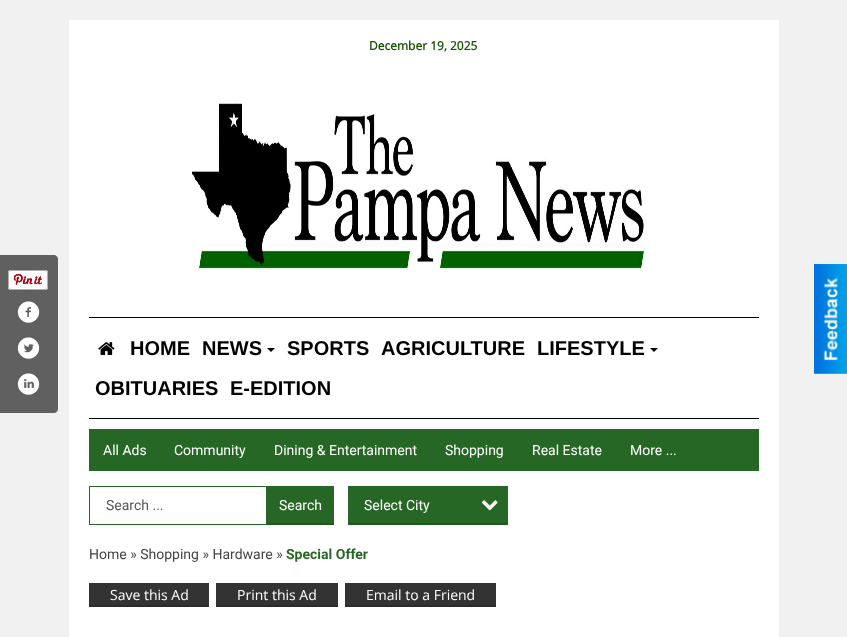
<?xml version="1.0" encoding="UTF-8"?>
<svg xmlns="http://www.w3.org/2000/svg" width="847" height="637">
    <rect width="100%" height="100%" fill="#F1F1F1"/>
    <path d="M 0 255 H 54 C 56 255 58 257 58 259 V 409 C 58 411 56 413 54 413 H 0 Z" fill="#606060"/>
    <image x="8" y="270" width="40" height="20" href="img_01.png"/>
    <image x="17" y="301" width="23" height="22" href="img_02.png"/>
    <image x="17" y="337" width="23" height="22" href="img_03.png"/>
    <image x="17" y="373" width="23" height="22" href="img_04.png"/>
    <rect x="69" y="20" width="710" height="617" fill="#FFFFFF"/>
    <text x="369" y="50" font-family="Open Sans" font-size="12" font-weight="700" fill="#195501">December 19, 2025</text>
    <image x="192" y="103" width="452" height="168" href="img_05.png"/>
    <rect x="89" y="317" width="670" height="1" fill="#000000"/>
    <rect x="89" y="418" width="670" height="1" fill="#000000"/>
    <image x="98" y="342" width="17" height="13" href="img_06.png"/>
    <text x="130" y="355" font-family="Liberation Sans" font-size="20" font-weight="700" fill="#000000">HOME</text>
    <text x="202" y="355" font-family="Liberation Sans" font-size="20" font-weight="700" fill="#000000">NEWS</text>
    <path d="M 267 348 H 275 L 271 352 Z" fill="#000000"/>
    <text x="287" y="355" font-family="Liberation Sans" font-size="20" font-weight="700" fill="#000000">SPORTS</text>
    <text x="381" y="355" font-family="Liberation Sans" font-size="20" font-weight="700" fill="#000000">AGRICULTURE</text>
    <text x="537" y="355" font-family="Liberation Sans" font-size="20" font-weight="700" fill="#000000">LIFESTYLE</text>
    <path d="M 650 348 H 658 L 654 352 Z" fill="#000000"/>
    <text x="95" y="395" font-family="Liberation Sans" font-size="20" font-weight="700" fill="#000000">OBITUARIES</text>
    <text x="230" y="395" font-family="Liberation Sans" font-size="20" font-weight="700" fill="#000000">E-EDITION</text>
    <rect x="89" y="429" width="670" height="42" fill="#276725"/>
    <text x="103" y="455" font-family="Roboto" font-size="14" fill="#FFFFFF">All Ads</text>
    <text x="174" y="455" font-family="Roboto" font-size="14" fill="#FFFFFF">Community</text>
    <text x="274" y="455" font-family="Roboto" font-size="14" fill="#FFFFFF">Dining &amp; Entertainment</text>
    <text x="445" y="455" font-family="Roboto" font-size="14" fill="#FFFFFF">Shopping</text>
    <text x="532" y="455" font-family="Roboto" font-size="14" fill="#FFFFFF">Real Estate</text>
    <text x="630" y="455" font-family="Roboto" font-size="14" fill="#FFFFFF">More ...</text>
    <rect x="89.5" y="486.5" width="177" height="38" fill="none" stroke="#276725"/>
    <text x="106" y="510" font-family="Roboto" font-size="14" fill="#555555">Search ...</text>
    <rect x="267" y="486" width="67" height="37" fill="#276725"/>
    <rect x="267" y="523" width="67" height="2" fill="#21581F"/>
    <text x="279" y="510" font-family="Roboto" font-size="14" fill="#FFFFFF">Search</text>
    <rect x="348" y="486" width="160" height="37" fill="#276725"/>
    <rect x="348" y="523" width="160" height="2" fill="#21581F"/>
    <text x="364" y="510" font-family="Roboto" font-size="14" fill="#FFFFFF">Select City</text>
    <image x="481" y="500" width="17" height="11" href="img_07.png"/>
    <text x="89" y="559" font-family="Roboto" font-size="14" fill="#444444">Home » Shopping » Hardware »</text>
    <text x="286" y="559" font-family="Roboto" font-size="14" font-weight="700" fill="#276725">Special Offer</text>
    <rect x="89" y="583" width="120" height="22" fill="#333333"/>
    <rect x="89" y="605" width="120" height="2" fill="#2B2B2B"/>
    <text x="110" y="600" font-family="Open Sans" font-size="14" fill="#FFFFFF">Save this Ad</text>
    <rect x="216" y="583" width="122" height="22" fill="#333333"/>
    <rect x="216" y="605" width="122" height="2" fill="#2B2B2B"/>
    <text x="237" y="600" font-family="Open Sans" font-size="14" fill="#FFFFFF">Print this Ad</text>
    <rect x="345" y="583" width="151" height="22" fill="#333333"/>
    <rect x="345" y="605" width="151" height="2" fill="#2B2B2B"/>
    <text x="366" y="600" font-family="Open Sans" font-size="14" fill="#FFFFFF">Email to a Friend</text>
    <image x="814" y="264" width="33" height="110" href="img_08.png"/>
</svg>
